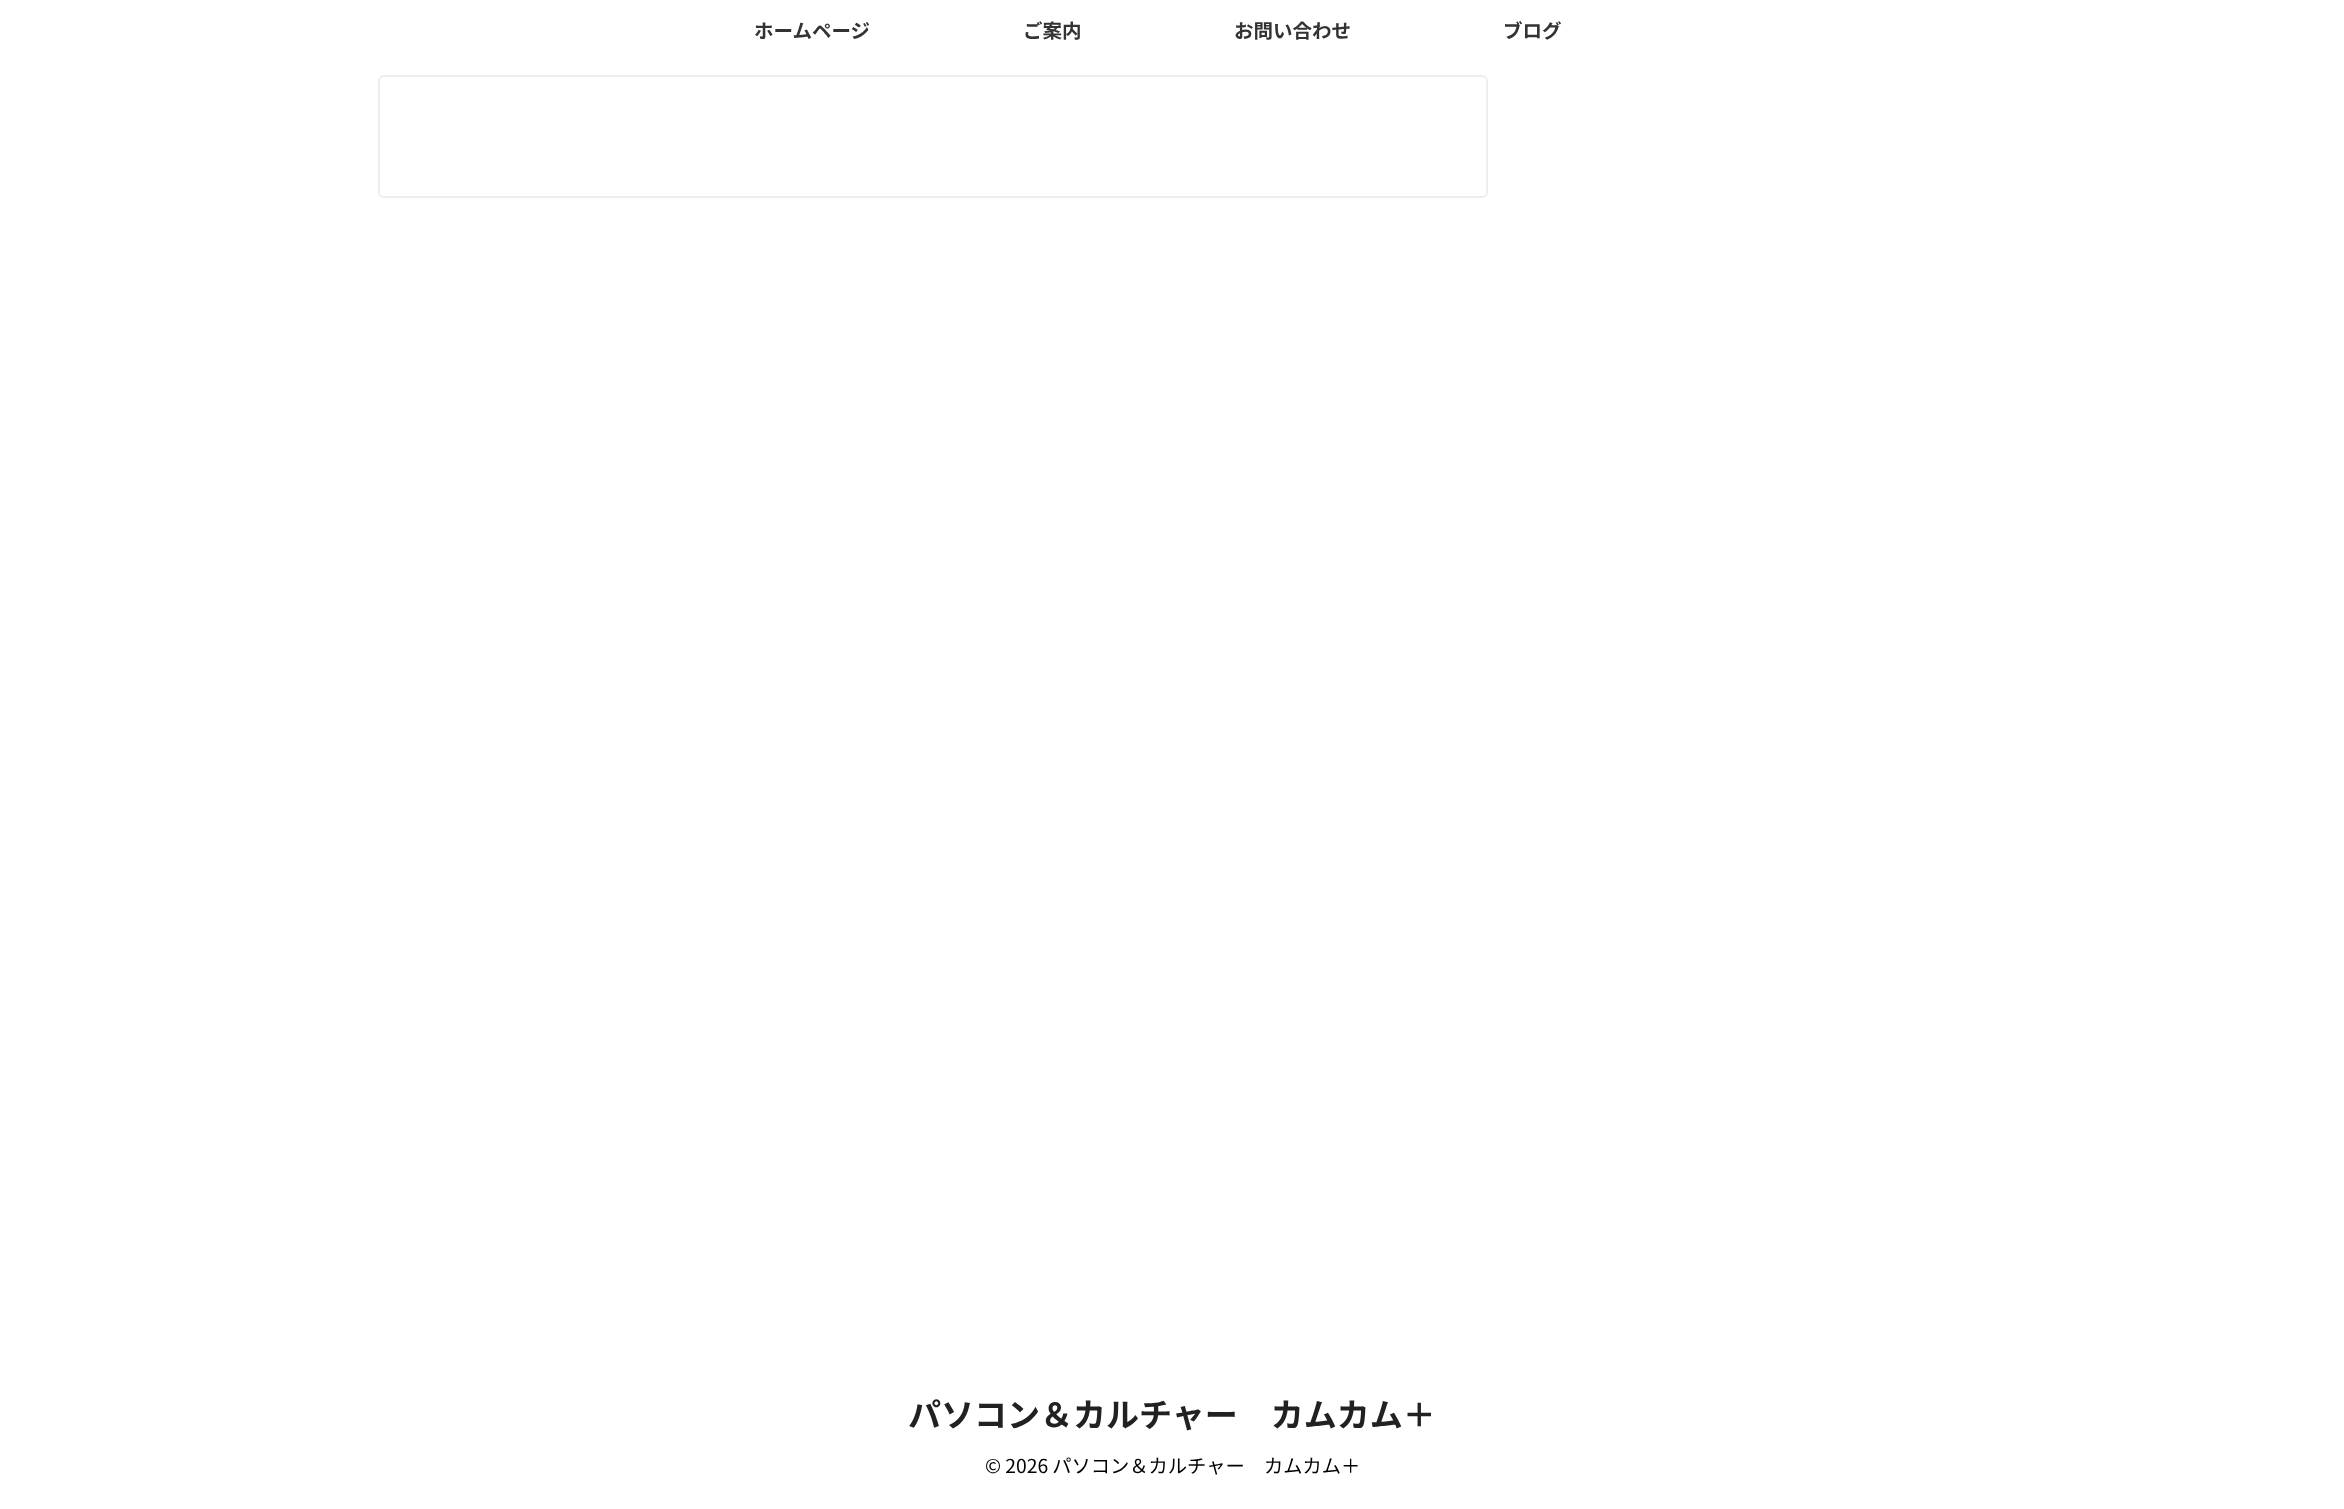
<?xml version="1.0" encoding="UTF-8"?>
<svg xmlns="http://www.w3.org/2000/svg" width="2344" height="1509">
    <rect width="100%" height="100%" fill="#FFFFFF"/>
    <text x="754" y="38" font-family="Noto Sans JP" font-size="19.5" font-weight="700" fill="#333333">ホームページ</text>
    <text x="1023" y="38" font-family="Noto Sans JP" font-size="19.5" font-weight="700" fill="#333333">ご案内</text>
    <text x="1234" y="38" font-family="Noto Sans JP" font-size="19.5" font-weight="700" fill="#333333">お問い合わせ</text>
    <text x="1503" y="38" font-family="Noto Sans JP" font-size="19.5" font-weight="700" fill="#333333">ブログ</text>
    <rect x="379" y="76" width="1108" height="121" rx="5" fill="none" stroke="#EEEEEE" stroke-width="2"/>
    <text x="908" y="1427" font-family="Noto Sans JP" font-size="33" font-weight="700" fill="#212121">パソコン＆カルチャー　カムカム＋</text>
    <text x="985" y="1473" font-family="Noto Sans JP" font-size="19.25" fill="#000000">© 2026 パソコン＆カルチャー　カムカム＋</text>
</svg>
